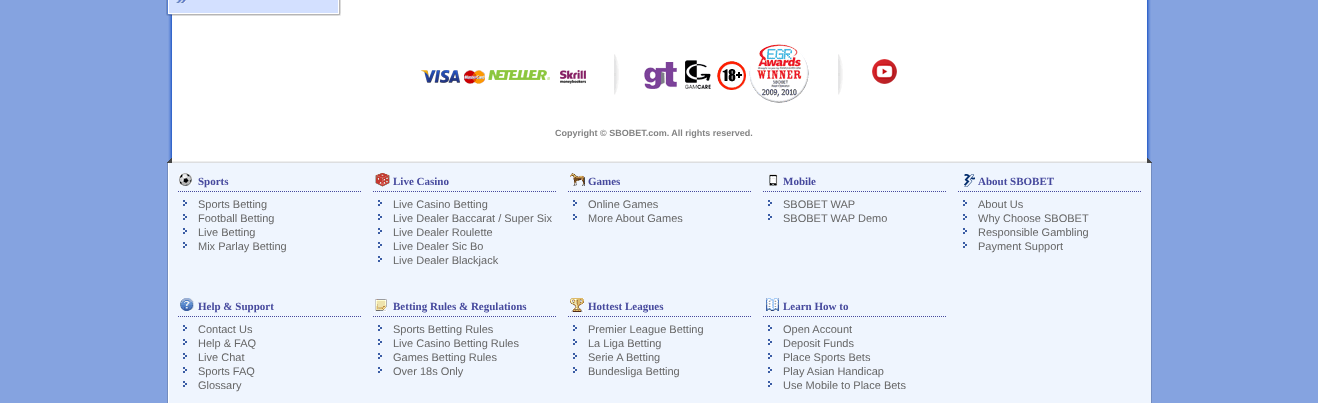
<?xml version="1.0" encoding="UTF-8"?>
<svg xmlns="http://www.w3.org/2000/svg" width="1318" height="403">
    <rect width="100%" height="100%" fill="#85A3E0"/>
    <image x="168" y="0" width="983" height="161" href="img_01.png"/>
    <rect x="169" y="0" width="169" height="13" fill="#D3E0FF"/>
    <image x="166" y="0" width="175" height="13" href="img_02.png"/>
    <image x="176" y="0" width="10" height="3" href="img_03.png"/>
    <image x="166" y="13" width="175" height="3" href="img_04.png"/>
    <image x="421" y="70" width="39" height="13" href="img_05.png"/>
    <image x="464" y="70" width="21" height="14" href="img_06.png"/>
    <image x="488" y="70" width="62" height="10" href="img_07.png"/>
    <image x="560" y="70" width="26" height="14" href="img_08.png"/>
    <image x="614" y="54" width="5" height="41" href="img_09.png"/>
    <image x="644" y="62" width="33" height="27" href="img_10.png"/>
    <image x="685" y="60" width="26" height="29" href="img_11.png"/>
    <image x="717" y="61" width="29" height="29" href="img_12.png"/>
    <image x="749" y="43" width="60" height="60" href="img_13.png"/>
    <image x="838" y="54" width="5" height="41" href="img_09.png"/>
    <image x="872" y="59" width="25" height="25" href="img_14.png"/>
    <text x="555" y="136" font-family="Liberation Sans" font-size="9" font-weight="700" fill="#848484">Copyright © SBOBET.com. All rights reserved.</text>
    <image x="167" y="158" width="985" height="5" href="img_15.png"/>
    <image x="168" y="163" width="983" height="240" href="img_16.png"/>
    <rect x="1151" y="163" width="1" height="240" fill="#728CC0"/>
    <rect x="167" y="163" width="1" height="240" fill="#728CC0"/>
    <image x="179" y="173" width="13" height="13" href="img_17.png"/>
    <path d="M 178 191.5 H 361" fill="none" stroke="#46499D" stroke-dasharray="1 1"/>
    <text x="198" y="185" font-family="Liberation Serif" font-size="11" font-weight="700" fill="#46499D">Sports</text>
    <image x="183" y="200" width="4" height="6" href="img_18.png"/>
    <text x="198" y="208" font-family="Liberation Sans" font-size="11" fill="#666666">Sports Betting</text>
    <image x="183" y="214" width="4" height="6" href="img_18.png"/>
    <text x="198" y="222" font-family="Liberation Sans" font-size="11" fill="#666666">Football Betting</text>
    <image x="183" y="228" width="4" height="6" href="img_18.png"/>
    <text x="198" y="236" font-family="Liberation Sans" font-size="11" fill="#666666">Live Betting</text>
    <image x="183" y="242" width="4" height="6" href="img_18.png"/>
    <text x="198" y="250" font-family="Liberation Sans" font-size="11" fill="#666666">Mix Parlay Betting</text>
    <image x="375" y="173" width="15" height="14" href="img_19.png"/>
    <path d="M 373 191.5 H 556" fill="none" stroke="#46499D" stroke-dasharray="1 1"/>
    <text x="393" y="185" font-family="Liberation Serif" font-size="11" font-weight="700" fill="#46499D">Live Casino</text>
    <image x="378" y="200" width="4" height="6" href="img_18.png"/>
    <text x="393" y="208" font-family="Liberation Sans" font-size="11" fill="#666666">Live Casino Betting</text>
    <image x="378" y="214" width="4" height="6" href="img_18.png"/>
    <text x="393" y="222" font-family="Liberation Sans" font-size="11" fill="#666666">Live Dealer Baccarat / Super Six</text>
    <image x="378" y="228" width="4" height="6" href="img_18.png"/>
    <text x="393" y="236" font-family="Liberation Sans" font-size="11" fill="#666666">Live Dealer Roulette</text>
    <image x="378" y="242" width="4" height="6" href="img_18.png"/>
    <text x="393" y="250" font-family="Liberation Sans" font-size="11" fill="#666666">Live Dealer Sic Bo</text>
    <image x="378" y="256" width="4" height="6" href="img_18.png"/>
    <text x="393" y="264" font-family="Liberation Sans" font-size="11" fill="#666666">Live Dealer Blackjack</text>
    <image x="570" y="173" width="15" height="13" href="img_20.png"/>
    <path d="M 568 191.5 H 751" fill="none" stroke="#46499D" stroke-dasharray="1 1"/>
    <text x="588" y="185" font-family="Liberation Serif" font-size="11" font-weight="700" fill="#46499D">Games</text>
    <image x="573" y="200" width="4" height="6" href="img_18.png"/>
    <text x="588" y="208" font-family="Liberation Sans" font-size="11" fill="#666666">Online Games</text>
    <image x="573" y="214" width="4" height="6" href="img_18.png"/>
    <text x="588" y="222" font-family="Liberation Sans" font-size="11" fill="#666666">More About Games</text>
    <image x="769" y="174" width="9" height="12" href="img_21.png"/>
    <path d="M 763 191.5 H 946" fill="none" stroke="#46499D" stroke-dasharray="1 1"/>
    <text x="783" y="185" font-family="Liberation Serif" font-size="11" font-weight="700" fill="#46499D">Mobile</text>
    <image x="768" y="200" width="4" height="6" href="img_18.png"/>
    <text x="783" y="208" font-family="Liberation Sans" font-size="11" fill="#666666">SBOBET WAP</text>
    <image x="768" y="214" width="4" height="6" href="img_18.png"/>
    <text x="783" y="222" font-family="Liberation Sans" font-size="11" fill="#666666">SBOBET WAP Demo</text>
    <image x="964" y="174" width="11" height="13" href="img_22.png"/>
    <path d="M 958 191.5 H 1141" fill="none" stroke="#46499D" stroke-dasharray="1 1"/>
    <text x="978" y="185" font-family="Liberation Serif" font-size="11" font-weight="700" fill="#46499D">About SBOBET</text>
    <image x="963" y="200" width="4" height="6" href="img_18.png"/>
    <text x="978" y="208" font-family="Liberation Sans" font-size="11" fill="#666666">About Us</text>
    <image x="963" y="214" width="4" height="6" href="img_18.png"/>
    <text x="978" y="222" font-family="Liberation Sans" font-size="11" fill="#666666">Why Choose SBOBET</text>
    <image x="963" y="228" width="4" height="6" href="img_18.png"/>
    <text x="978" y="236" font-family="Liberation Sans" font-size="11" fill="#666666">Responsible Gambling</text>
    <image x="963" y="242" width="4" height="6" href="img_18.png"/>
    <text x="978" y="250" font-family="Liberation Sans" font-size="11" fill="#666666">Payment Support</text>
    <image x="180" y="298" width="14" height="13" href="img_23.png"/>
    <path d="M 178 316.5 H 361" fill="none" stroke="#46499D" stroke-dasharray="1 1"/>
    <text x="198" y="310" font-family="Liberation Serif" font-size="11" font-weight="700" fill="#46499D">Help &amp; Support</text>
    <image x="183" y="325" width="4" height="6" href="img_18.png"/>
    <text x="198" y="333" font-family="Liberation Sans" font-size="11" fill="#666666">Contact Us</text>
    <image x="183" y="339" width="4" height="6" href="img_18.png"/>
    <text x="198" y="347" font-family="Liberation Sans" font-size="11" fill="#666666">Help &amp; FAQ</text>
    <image x="183" y="353" width="4" height="6" href="img_18.png"/>
    <text x="198" y="361" font-family="Liberation Sans" font-size="11" fill="#666666">Live Chat</text>
    <image x="183" y="367" width="4" height="6" href="img_18.png"/>
    <text x="198" y="375" font-family="Liberation Sans" font-size="11" fill="#666666">Sports FAQ</text>
    <image x="183" y="381" width="4" height="6" href="img_18.png"/>
    <text x="198" y="389" font-family="Liberation Sans" font-size="11" fill="#666666">Glossary</text>
    <image x="374" y="299" width="13" height="13" href="img_24.png"/>
    <path d="M 373 316.5 H 556" fill="none" stroke="#46499D" stroke-dasharray="1 1"/>
    <text x="393" y="310" font-family="Liberation Serif" font-size="11" font-weight="700" fill="#46499D">Betting Rules &amp; Regulations</text>
    <image x="378" y="325" width="4" height="6" href="img_18.png"/>
    <text x="393" y="333" font-family="Liberation Sans" font-size="11" fill="#666666">Sports Betting Rules</text>
    <image x="378" y="339" width="4" height="6" href="img_18.png"/>
    <text x="393" y="347" font-family="Liberation Sans" font-size="11" fill="#666666">Live Casino Betting Rules</text>
    <image x="378" y="353" width="4" height="6" href="img_18.png"/>
    <text x="393" y="361" font-family="Liberation Sans" font-size="11" fill="#666666">Games Betting Rules</text>
    <image x="378" y="367" width="4" height="6" href="img_18.png"/>
    <text x="393" y="375" font-family="Liberation Sans" font-size="11" fill="#666666">Over 18s Only</text>
    <image x="570" y="298" width="14" height="14" href="img_25.png"/>
    <path d="M 568 316.5 H 751" fill="none" stroke="#46499D" stroke-dasharray="1 1"/>
    <text x="588" y="310" font-family="Liberation Serif" font-size="11" font-weight="700" fill="#46499D">Hottest Leagues</text>
    <image x="573" y="325" width="4" height="6" href="img_18.png"/>
    <text x="588" y="333" font-family="Liberation Sans" font-size="11" fill="#666666">Premier League Betting</text>
    <image x="573" y="339" width="4" height="6" href="img_18.png"/>
    <text x="588" y="347" font-family="Liberation Sans" font-size="11" fill="#666666">La Liga Betting</text>
    <image x="573" y="353" width="4" height="6" href="img_18.png"/>
    <text x="588" y="361" font-family="Liberation Sans" font-size="11" fill="#666666">Serie A Betting</text>
    <image x="573" y="367" width="4" height="6" href="img_18.png"/>
    <text x="588" y="375" font-family="Liberation Sans" font-size="11" fill="#666666">Bundesliga Betting</text>
    <image x="766" y="298" width="13" height="13" href="img_26.png"/>
    <path d="M 763 316.5 H 946" fill="none" stroke="#46499D" stroke-dasharray="1 1"/>
    <text x="783" y="310" font-family="Liberation Serif" font-size="11" font-weight="700" fill="#46499D">Learn How to</text>
    <image x="768" y="325" width="4" height="6" href="img_18.png"/>
    <text x="783" y="333" font-family="Liberation Sans" font-size="11" fill="#666666">Open Account</text>
    <image x="768" y="339" width="4" height="6" href="img_18.png"/>
    <text x="783" y="347" font-family="Liberation Sans" font-size="11" fill="#666666">Deposit Funds</text>
    <image x="768" y="353" width="4" height="6" href="img_18.png"/>
    <text x="783" y="361" font-family="Liberation Sans" font-size="11" fill="#666666">Place Sports Bets</text>
    <image x="768" y="367" width="4" height="6" href="img_18.png"/>
    <text x="783" y="375" font-family="Liberation Sans" font-size="11" fill="#666666">Play Asian Handicap</text>
    <image x="768" y="381" width="4" height="6" href="img_18.png"/>
    <text x="783" y="389" font-family="Liberation Sans" font-size="11" fill="#666666">Use Mobile to Place Bets</text>
</svg>
